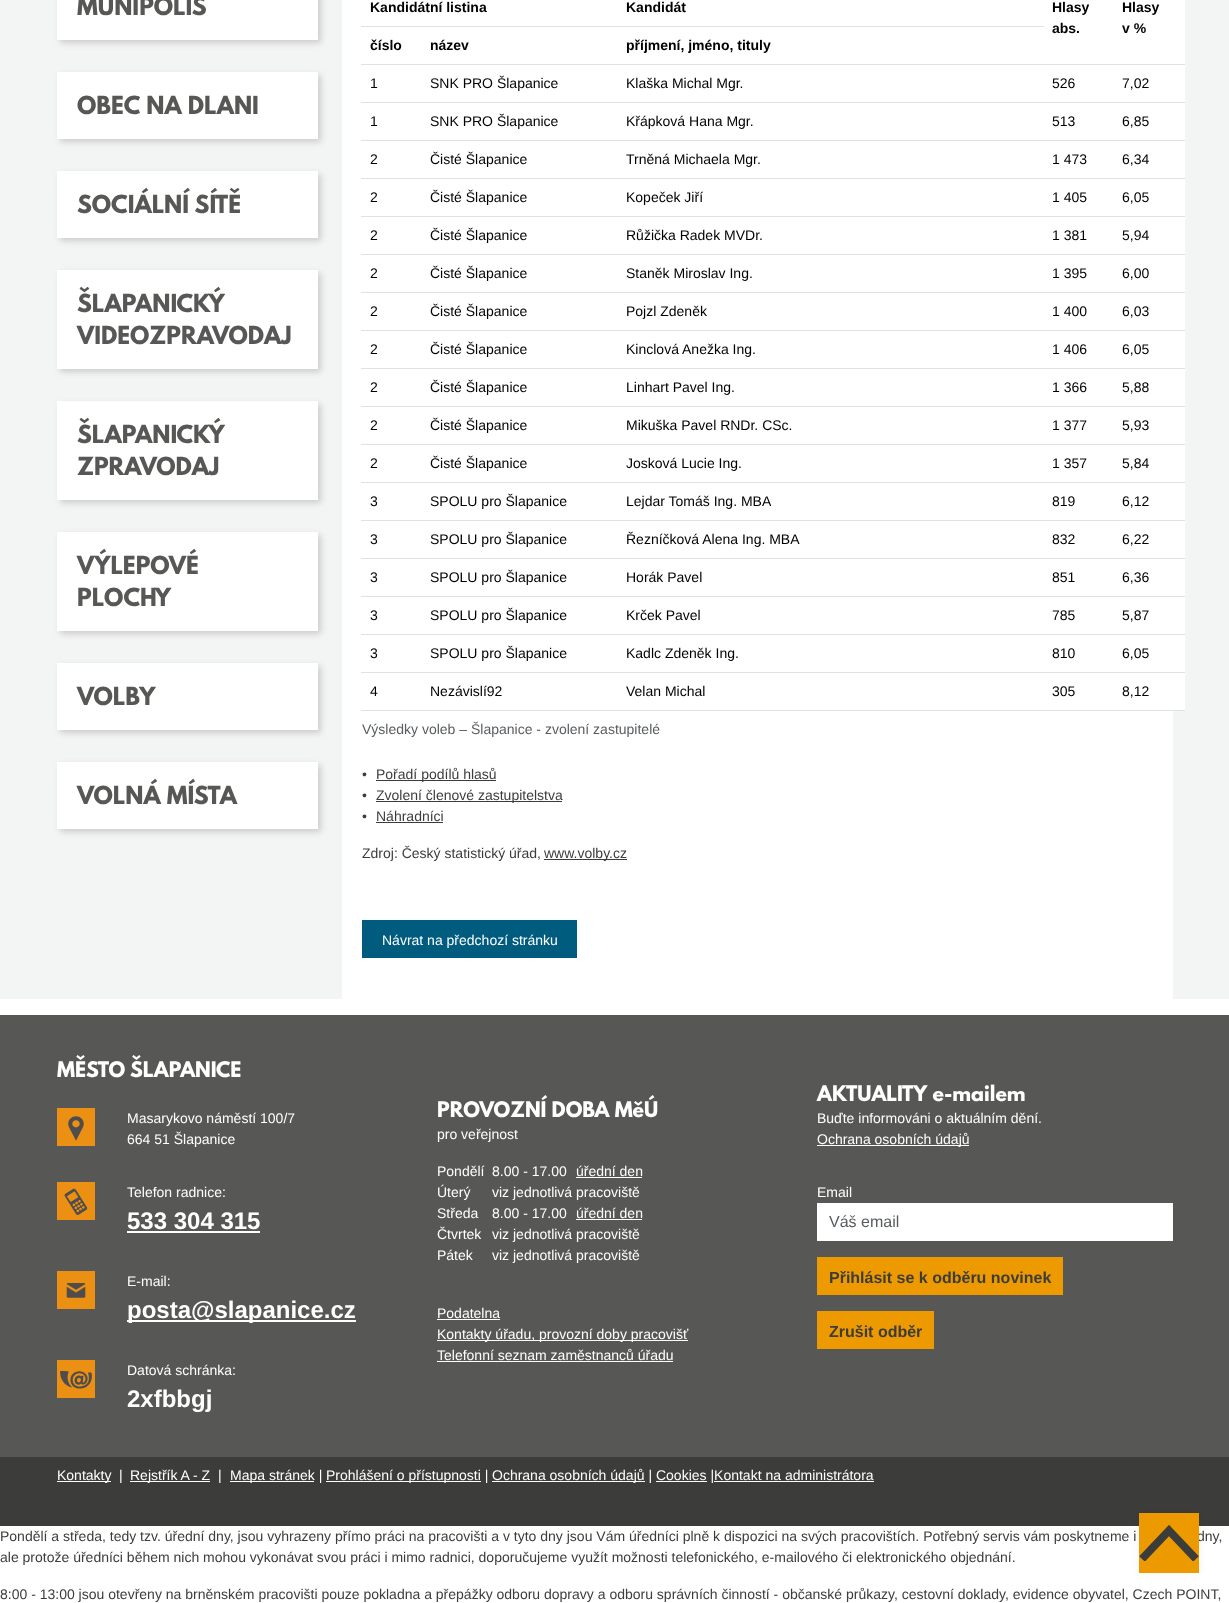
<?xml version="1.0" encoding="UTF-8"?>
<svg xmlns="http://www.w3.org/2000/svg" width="1229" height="1603">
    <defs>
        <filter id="blur1" x="-50%" y="-200%" width="200%" height="500%"><feGaussianBlur stdDeviation="3"/></filter>
        <filter id="blur2" x="-50%" y="-200%" width="200%" height="500%"><feGaussianBlur stdDeviation="5"/></filter>
        <clipPath id="clip1"><rect x="1139" y="1525" width="60" height="36"/></clipPath>
    </defs>
    <rect width="100%" height="100%" fill="#FFFFFF"/>
    <rect x="0" y="0" width="1229" height="999" fill="#F3F4F4"/>
    <rect x="60" y="-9" width="261" height="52" fill="#CCCCCC" filter="url(#blur1)"/>
    <rect x="57" y="0" width="261" height="40" fill="#FFFFFF"/>
    <text x="77" y="15" font-family="League Spartan" font-size="22" font-weight="700" fill="#575756">MUNIPOLIS</text>
    <rect x="60" y="75" width="261" height="67" fill="#CCCCCC" filter="url(#blur1)"/>
    <rect x="57" y="72" width="261" height="67" fill="#FFFFFF"/>
    <text x="77" y="114" font-family="League Spartan" font-size="22" font-weight="700" fill="#575756">OBEC NA DLANI</text>
    <rect x="60" y="174" width="261" height="67" fill="#CCCCCC" filter="url(#blur1)"/>
    <rect x="57" y="171" width="261" height="67" fill="#FFFFFF"/>
    <text x="77" y="213" font-family="League Spartan" font-size="22" font-weight="700" fill="#575756">SOCIÁLNÍ SÍTĚ</text>
    <rect x="60" y="273" width="261" height="99" fill="#CCCCCC" filter="url(#blur1)"/>
    <rect x="57" y="270" width="261" height="99" fill="#FFFFFF"/>
    <text font-family="League Spartan" font-size="22" font-weight="700" fill="#575756">
        <tspan x="77" y="312">ŠLAPANICKÝ</tspan>
        <tspan x="77" y="344">VIDEOZPRAVODAJ</tspan>
    </text>
    <rect x="60" y="404" width="261" height="99" fill="#CCCCCC" filter="url(#blur1)"/>
    <rect x="57" y="401" width="261" height="99" fill="#FFFFFF"/>
    <text font-family="League Spartan" font-size="22" font-weight="700" fill="#575756">
        <tspan x="77" y="443">ŠLAPANICKÝ</tspan>
        <tspan x="77" y="475">ZPRAVODAJ</tspan>
    </text>
    <rect x="60" y="535" width="261" height="99" fill="#CCCCCC" filter="url(#blur1)"/>
    <rect x="57" y="532" width="261" height="99" fill="#FFFFFF"/>
    <text font-family="League Spartan" font-size="22" font-weight="700" fill="#575756">
        <tspan x="77" y="574">VÝLEPOVÉ</tspan>
        <tspan x="77" y="606">PLOCHY</tspan>
    </text>
    <rect x="60" y="666" width="261" height="67" fill="#CCCCCC" filter="url(#blur1)"/>
    <rect x="57" y="663" width="261" height="67" fill="#FFFFFF"/>
    <text x="77" y="705" font-family="League Spartan" font-size="22" font-weight="700" fill="#575756">VOLBY</text>
    <rect x="60" y="765" width="261" height="67" fill="#CCCCCC" filter="url(#blur1)"/>
    <rect x="57" y="762" width="261" height="67" fill="#FFFFFF"/>
    <text x="77" y="804" font-family="League Spartan" font-size="22" font-weight="700" fill="#575756">VOLNÁ MÍSTA</text>
    <rect x="342" y="0" width="831" height="999" fill="#FFFFFF"/>
    <text x="370" y="12" font-family="Liberation Sans" font-size="14" font-weight="700" fill="#000000">Kandidátní listina</text>
    <rect x="361" y="26" width="683" height="1" fill="#DEE2E6"/>
    <text x="626" y="12" font-family="Liberation Sans" font-size="14" font-weight="700" fill="#000000">Kandidát</text>
    <text font-family="Liberation Sans" font-size="14" font-weight="700" fill="#000000">
        <tspan x="1052" y="12">Hlasy</tspan>
        <tspan x="1052" y="33">abs.</tspan>
    </text>
    <rect x="1173" y="0" width="12" height="64" fill="#FFFFFF"/>
    <rect x="361" y="64" width="683" height="1" fill="#DEE2E6"/>
    <rect x="1043" y="64" width="142" height="1" fill="#DEE2E6"/>
    <text font-family="Liberation Sans" font-size="14" font-weight="700" fill="#000000">
        <tspan x="1122" y="12">Hlasy</tspan>
        <tspan x="1122" y="33">v %</tspan>
    </text>
    <text x="370" y="50" font-family="Liberation Sans" font-size="14" font-weight="700" fill="#000000">číslo</text>
    <text x="430" y="50" font-family="Liberation Sans" font-size="14" font-weight="700" fill="#000000">název</text>
    <text x="626" y="50" font-family="Liberation Sans" font-size="14" font-weight="700" fill="#000000">příjmení, jméno, tituly</text>
    <text x="370" y="88" font-family="Liberation Sans" font-size="14" fill="#000000">1</text>
    <text x="430" y="88" font-family="Liberation Sans" font-size="14" fill="#000000">SNK PRO Šlapanice</text>
    <text x="626" y="88" font-family="Liberation Sans" font-size="14" fill="#000000">Klaška Michal Mgr.</text>
    <text x="1052" y="88" font-family="Liberation Sans" font-size="14" fill="#000000">526</text>
    <rect x="1173" y="65" width="12" height="37" fill="#FFFFFF"/>
    <rect x="361" y="102" width="824" height="1" fill="#DEE2E6"/>
    <text x="1122" y="88" font-family="Liberation Sans" font-size="14" fill="#000000">7,02</text>
    <text x="370" y="126" font-family="Liberation Sans" font-size="14" fill="#000000">1</text>
    <text x="430" y="126" font-family="Liberation Sans" font-size="14" fill="#000000">SNK PRO Šlapanice</text>
    <text x="626" y="126" font-family="Liberation Sans" font-size="14" fill="#000000">Křápková Hana Mgr.</text>
    <text x="1052" y="126" font-family="Liberation Sans" font-size="14" fill="#000000">513</text>
    <rect x="1173" y="103" width="12" height="37" fill="#FFFFFF"/>
    <rect x="361" y="140" width="824" height="1" fill="#DEE2E6"/>
    <text x="1122" y="126" font-family="Liberation Sans" font-size="14" fill="#000000">6,85</text>
    <text x="370" y="164" font-family="Liberation Sans" font-size="14" fill="#000000">2</text>
    <text x="430" y="164" font-family="Liberation Sans" font-size="14" fill="#000000">Čisté Šlapanice</text>
    <text x="626" y="164" font-family="Liberation Sans" font-size="14" fill="#000000">Trněná Michaela Mgr.</text>
    <text x="1052" y="164" font-family="Liberation Sans" font-size="14" fill="#000000">1 473</text>
    <rect x="1173" y="141" width="12" height="37" fill="#FFFFFF"/>
    <rect x="361" y="178" width="824" height="1" fill="#DEE2E6"/>
    <text x="1122" y="164" font-family="Liberation Sans" font-size="14" fill="#000000">6,34</text>
    <text x="370" y="202" font-family="Liberation Sans" font-size="14" fill="#000000">2</text>
    <text x="430" y="202" font-family="Liberation Sans" font-size="14" fill="#000000">Čisté Šlapanice</text>
    <text x="626" y="202" font-family="Liberation Sans" font-size="14" fill="#000000">Kopeček Jiří</text>
    <text x="1052" y="202" font-family="Liberation Sans" font-size="14" fill="#000000">1 405</text>
    <rect x="1173" y="179" width="12" height="37" fill="#FFFFFF"/>
    <rect x="361" y="216" width="824" height="1" fill="#DEE2E6"/>
    <text x="1122" y="202" font-family="Liberation Sans" font-size="14" fill="#000000">6,05</text>
    <text x="370" y="240" font-family="Liberation Sans" font-size="14" fill="#000000">2</text>
    <text x="430" y="240" font-family="Liberation Sans" font-size="14" fill="#000000">Čisté Šlapanice</text>
    <text x="626" y="240" font-family="Liberation Sans" font-size="14" fill="#000000">Růžička Radek MVDr.</text>
    <text x="1052" y="240" font-family="Liberation Sans" font-size="14" fill="#000000">1 381</text>
    <rect x="1173" y="217" width="12" height="37" fill="#FFFFFF"/>
    <rect x="361" y="254" width="824" height="1" fill="#DEE2E6"/>
    <text x="1122" y="240" font-family="Liberation Sans" font-size="14" fill="#000000">5,94</text>
    <text x="370" y="278" font-family="Liberation Sans" font-size="14" fill="#000000">2</text>
    <text x="430" y="278" font-family="Liberation Sans" font-size="14" fill="#000000">Čisté Šlapanice</text>
    <text x="626" y="278" font-family="Liberation Sans" font-size="14" fill="#000000">Staněk Miroslav Ing.</text>
    <text x="1052" y="278" font-family="Liberation Sans" font-size="14" fill="#000000">1 395</text>
    <rect x="1173" y="255" width="12" height="37" fill="#FFFFFF"/>
    <rect x="361" y="292" width="824" height="1" fill="#DEE2E6"/>
    <text x="1122" y="278" font-family="Liberation Sans" font-size="14" fill="#000000">6,00</text>
    <text x="370" y="316" font-family="Liberation Sans" font-size="14" fill="#000000">2</text>
    <text x="430" y="316" font-family="Liberation Sans" font-size="14" fill="#000000">Čisté Šlapanice</text>
    <text x="626" y="316" font-family="Liberation Sans" font-size="14" fill="#000000">Pojzl Zdeněk</text>
    <text x="1052" y="316" font-family="Liberation Sans" font-size="14" fill="#000000">1 400</text>
    <rect x="1173" y="293" width="12" height="37" fill="#FFFFFF"/>
    <rect x="361" y="330" width="824" height="1" fill="#DEE2E6"/>
    <text x="1122" y="316" font-family="Liberation Sans" font-size="14" fill="#000000">6,03</text>
    <text x="370" y="354" font-family="Liberation Sans" font-size="14" fill="#000000">2</text>
    <text x="430" y="354" font-family="Liberation Sans" font-size="14" fill="#000000">Čisté Šlapanice</text>
    <text x="626" y="354" font-family="Liberation Sans" font-size="14" fill="#000000">Kinclová Anežka Ing.</text>
    <text x="1052" y="354" font-family="Liberation Sans" font-size="14" fill="#000000">1 406</text>
    <rect x="1173" y="331" width="12" height="37" fill="#FFFFFF"/>
    <rect x="361" y="368" width="824" height="1" fill="#DEE2E6"/>
    <text x="1122" y="354" font-family="Liberation Sans" font-size="14" fill="#000000">6,05</text>
    <text x="370" y="392" font-family="Liberation Sans" font-size="14" fill="#000000">2</text>
    <text x="430" y="392" font-family="Liberation Sans" font-size="14" fill="#000000">Čisté Šlapanice</text>
    <text x="626" y="392" font-family="Liberation Sans" font-size="14" fill="#000000">Linhart Pavel Ing.</text>
    <text x="1052" y="392" font-family="Liberation Sans" font-size="14" fill="#000000">1 366</text>
    <rect x="1173" y="369" width="12" height="37" fill="#FFFFFF"/>
    <rect x="361" y="406" width="824" height="1" fill="#DEE2E6"/>
    <text x="1122" y="392" font-family="Liberation Sans" font-size="14" fill="#000000">5,88</text>
    <text x="370" y="430" font-family="Liberation Sans" font-size="14" fill="#000000">2</text>
    <text x="430" y="430" font-family="Liberation Sans" font-size="14" fill="#000000">Čisté Šlapanice</text>
    <text x="626" y="430" font-family="Liberation Sans" font-size="14" fill="#000000">Mikuška Pavel RNDr. CSc.</text>
    <text x="1052" y="430" font-family="Liberation Sans" font-size="14" fill="#000000">1 377</text>
    <rect x="1173" y="407" width="12" height="37" fill="#FFFFFF"/>
    <rect x="361" y="444" width="824" height="1" fill="#DEE2E6"/>
    <text x="1122" y="430" font-family="Liberation Sans" font-size="14" fill="#000000">5,93</text>
    <text x="370" y="468" font-family="Liberation Sans" font-size="14" fill="#000000">2</text>
    <text x="430" y="468" font-family="Liberation Sans" font-size="14" fill="#000000">Čisté Šlapanice</text>
    <text x="626" y="468" font-family="Liberation Sans" font-size="14" fill="#000000">Josková Lucie Ing.</text>
    <text x="1052" y="468" font-family="Liberation Sans" font-size="14" fill="#000000">1 357</text>
    <rect x="1173" y="445" width="12" height="37" fill="#FFFFFF"/>
    <rect x="361" y="482" width="824" height="1" fill="#DEE2E6"/>
    <text x="1122" y="468" font-family="Liberation Sans" font-size="14" fill="#000000">5,84</text>
    <text x="370" y="506" font-family="Liberation Sans" font-size="14" fill="#000000">3</text>
    <text x="430" y="506" font-family="Liberation Sans" font-size="14" fill="#000000">SPOLU pro Šlapanice</text>
    <text x="626" y="506" font-family="Liberation Sans" font-size="14" fill="#000000">Lejdar Tomáš Ing. MBA</text>
    <text x="1052" y="506" font-family="Liberation Sans" font-size="14" fill="#000000">819</text>
    <rect x="1173" y="483" width="12" height="37" fill="#FFFFFF"/>
    <rect x="361" y="520" width="824" height="1" fill="#DEE2E6"/>
    <text x="1122" y="506" font-family="Liberation Sans" font-size="14" fill="#000000">6,12</text>
    <text x="370" y="544" font-family="Liberation Sans" font-size="14" fill="#000000">3</text>
    <text x="430" y="544" font-family="Liberation Sans" font-size="14" fill="#000000">SPOLU pro Šlapanice</text>
    <text x="626" y="544" font-family="Liberation Sans" font-size="14" fill="#000000">Řezníčková Alena Ing. MBA</text>
    <text x="1052" y="544" font-family="Liberation Sans" font-size="14" fill="#000000">832</text>
    <rect x="1173" y="521" width="12" height="37" fill="#FFFFFF"/>
    <rect x="361" y="558" width="824" height="1" fill="#DEE2E6"/>
    <text x="1122" y="544" font-family="Liberation Sans" font-size="14" fill="#000000">6,22</text>
    <text x="370" y="582" font-family="Liberation Sans" font-size="14" fill="#000000">3</text>
    <text x="430" y="582" font-family="Liberation Sans" font-size="14" fill="#000000">SPOLU pro Šlapanice</text>
    <text x="626" y="582" font-family="Liberation Sans" font-size="14" fill="#000000">Horák Pavel</text>
    <text x="1052" y="582" font-family="Liberation Sans" font-size="14" fill="#000000">851</text>
    <rect x="1173" y="559" width="12" height="37" fill="#FFFFFF"/>
    <rect x="361" y="596" width="824" height="1" fill="#DEE2E6"/>
    <text x="1122" y="582" font-family="Liberation Sans" font-size="14" fill="#000000">6,36</text>
    <text x="370" y="620" font-family="Liberation Sans" font-size="14" fill="#000000">3</text>
    <text x="430" y="620" font-family="Liberation Sans" font-size="14" fill="#000000">SPOLU pro Šlapanice</text>
    <text x="626" y="620" font-family="Liberation Sans" font-size="14" fill="#000000">Krček Pavel</text>
    <text x="1052" y="620" font-family="Liberation Sans" font-size="14" fill="#000000">785</text>
    <rect x="1173" y="597" width="12" height="37" fill="#FFFFFF"/>
    <rect x="361" y="634" width="824" height="1" fill="#DEE2E6"/>
    <text x="1122" y="620" font-family="Liberation Sans" font-size="14" fill="#000000">5,87</text>
    <text x="370" y="658" font-family="Liberation Sans" font-size="14" fill="#000000">3</text>
    <text x="430" y="658" font-family="Liberation Sans" font-size="14" fill="#000000">SPOLU pro Šlapanice</text>
    <text x="626" y="658" font-family="Liberation Sans" font-size="14" fill="#000000">Kadlc Zdeněk Ing.</text>
    <text x="1052" y="658" font-family="Liberation Sans" font-size="14" fill="#000000">810</text>
    <rect x="1173" y="635" width="12" height="37" fill="#FFFFFF"/>
    <rect x="361" y="672" width="824" height="1" fill="#DEE2E6"/>
    <text x="1122" y="658" font-family="Liberation Sans" font-size="14" fill="#000000">6,05</text>
    <text x="370" y="696" font-family="Liberation Sans" font-size="14" fill="#000000">4</text>
    <text x="430" y="696" font-family="Liberation Sans" font-size="14" fill="#000000">Nezávislí92</text>
    <text x="626" y="696" font-family="Liberation Sans" font-size="14" fill="#000000">Velan Michal</text>
    <text x="1052" y="696" font-family="Liberation Sans" font-size="14" fill="#000000">305</text>
    <rect x="1173" y="673" width="12" height="37" fill="#FFFFFF"/>
    <rect x="361" y="710" width="824" height="1" fill="#DEE2E6"/>
    <text x="1122" y="696" font-family="Liberation Sans" font-size="14" fill="#000000">8,12</text>
    <text x="362" y="734" font-family="Liberation Sans" font-size="14" fill="#595C5F">Výsledky voleb – Šlapanice - zvolení zastupitelé</text>
    <text x="362" y="779" font-family="Liberation Sans" font-size="14" fill="#3C3C3B">•</text>
    <rect x="376" y="780" width="120" height="1" fill="#3C3C3B"/>
    <text x="376" y="779" font-family="Liberation Sans" font-size="14" fill="#3C3C3B">Pořadí podílů hlasů</text>
    <text x="362" y="800" font-family="Liberation Sans" font-size="14" fill="#3C3C3B">•</text>
    <rect x="376" y="801" width="186" height="1" fill="#3C3C3B"/>
    <text x="376" y="800" font-family="Liberation Sans" font-size="14" fill="#3C3C3B">Zvolení členové zastupitelstva</text>
    <text x="362" y="821" font-family="Liberation Sans" font-size="14" fill="#3C3C3B">•</text>
    <text x="376" y="821" font-family="Liberation Sans" font-size="14" fill="#3C3C3B">Náhradníci</text>
    <rect x="376" y="822" width="67" height="1" fill="#3C3C3B"/>
    <text x="362" y="858" font-family="Liberation Sans" font-size="14" fill="#3C3C3B">Zdroj: Český statistický úřad,</text>
    <rect x="544" y="859" width="83" height="1" fill="#3C3C3B"/>
    <text x="544" y="858" font-family="Liberation Sans" font-size="14" fill="#3C3C3B">www.volby.cz</text>
    <rect x="362" y="920" width="215" height="38" fill="#005C7E"/>
    <text x="382" y="945" font-family="Liberation Sans" font-size="14" fill="#FFFFFF">Návrat na předchozí stránku</text>
    <rect x="0" y="1015" width="1229" height="442" fill="#575756"/>
    <text x="57" y="1077" font-family="League Spartan" font-size="19" font-weight="700" fill="#FFFFFF">MĚSTO ŠLAPANICE</text>
    <image x="57" y="1108" width="38" height="38" href="img_01.png"/>
    <text font-family="Liberation Sans" font-size="14" fill="#FFFFFF">
        <tspan x="127" y="1123">Masarykovo náměstí 100/7</tspan>
        <tspan x="127" y="1144">664 51 Šlapanice</tspan>
    </text>
    <image x="57" y="1182" width="38" height="38" href="img_02.png"/>
    <text x="127" y="1197" font-family="Liberation Sans" font-size="14" fill="#FFFFFF">Telefon radnice:</text>
    <text x="127" y="1229" font-family="Liberation Sans" font-size="24" font-weight="700" fill="#FFFFFF">533 304 315</text>
    <rect x="127" y="1231" width="133" height="2" fill="#FFFFFF"/>
    <image x="57" y="1271" width="38" height="38" href="img_03.png"/>
    <text x="127" y="1286" font-family="Liberation Sans" font-size="14" fill="#FFFFFF">E-mail:</text>
    <rect x="127" y="1320" width="229" height="2" fill="#FFFFFF"/>
    <text x="127" y="1318" font-family="Liberation Sans" font-size="24" font-weight="700" fill="#FFFFFF">posta@slapanice.cz</text>
    <image x="57" y="1360" width="38" height="38" href="img_04.png"/>
    <text x="127" y="1375" font-family="Liberation Sans" font-size="14" fill="#FFFFFF">Datová schránka:</text>
    <text x="127" y="1407" font-family="Liberation Sans" font-size="24" font-weight="700" fill="#FFFFFF">2xfbbgj</text>
    <text x="437" y="1117" font-family="League Spartan" font-size="19" font-weight="700" fill="#FFFFFF">PROVOZNÍ DOBA MěÚ</text>
    <text x="437" y="1139" font-family="Liberation Sans" font-size="14" fill="#FFFFFF">pro veřejnost</text>
    <text x="437" y="1176" font-family="Liberation Sans" font-size="14" fill="#FFFFFF">Pondělí</text>
    <text x="492" y="1176" font-family="Liberation Sans" font-size="14" fill="#FFFFFF">8.00 - 17.00</text>
    <text x="576" y="1176" font-family="Liberation Sans" font-size="14" fill="#FFFFFF">úřední den</text>
    <rect x="576" y="1177" width="66" height="1" fill="#FFFFFF"/>
    <text x="437" y="1197" font-family="Liberation Sans" font-size="14" fill="#FFFFFF">Úterý</text>
    <text x="492" y="1197" font-family="Liberation Sans" font-size="14" fill="#FFFFFF">viz jednotlivá pracoviště</text>
    <text x="437" y="1218" font-family="Liberation Sans" font-size="14" fill="#FFFFFF">Středa</text>
    <text x="492" y="1218" font-family="Liberation Sans" font-size="14" fill="#FFFFFF">8.00 - 17.00</text>
    <text x="576" y="1218" font-family="Liberation Sans" font-size="14" fill="#FFFFFF">úřední den</text>
    <rect x="576" y="1219" width="66" height="1" fill="#FFFFFF"/>
    <text x="437" y="1239" font-family="Liberation Sans" font-size="14" fill="#FFFFFF">Čtvrtek</text>
    <text x="492" y="1239" font-family="Liberation Sans" font-size="14" fill="#FFFFFF">viz jednotlivá pracoviště</text>
    <text x="437" y="1260" font-family="Liberation Sans" font-size="14" fill="#FFFFFF">Pátek</text>
    <text x="492" y="1260" font-family="Liberation Sans" font-size="14" fill="#FFFFFF">viz jednotlivá pracoviště</text>
    <text x="437" y="1318" font-family="Liberation Sans" font-size="14" fill="#FFFFFF">Podatelna</text>
    <rect x="437" y="1319" width="63" height="1" fill="#FFFFFF"/>
    <rect x="437" y="1340" width="251" height="1" fill="#FFFFFF"/>
    <text font-family="Liberation Sans" font-size="14" fill="#FFFFFF">
        <tspan x="437" y="1339">Kontakty úřadu, provozní doby pracovišť</tspan>
        <tspan x="437" y="1360">Telefonní seznam zaměstnanců úřadu</tspan>
    </text>
    <rect x="437" y="1361" width="236" height="1" fill="#FFFFFF"/>
    <text x="817" y="1101" font-family="League Spartan" font-size="19" font-weight="700" fill="#FFFFFF">AKTUALITY e-mailem</text>
    <text x="817" y="1123" font-family="Liberation Sans" font-size="14" fill="#FFFFFF">Buďte informováni o aktuálním dění.</text>
    <rect x="817" y="1145" width="152" height="1" fill="#FFFFFF"/>
    <text x="817" y="1144" font-family="Liberation Sans" font-size="14" fill="#FFFFFF">Ochrana osobních údajů</text>
    <text x="817" y="1197" font-family="Liberation Sans" font-size="14" fill="#FFFFFF">Email</text>
    <rect x="817" y="1203" width="356" height="38" fill="#FFFFFF"/>
    <text x="829" y="1227" font-family="Liberation Sans" font-size="16" fill="#595C5F">Váš email</text>
    <rect x="817" y="1257" width="246" height="38" fill="#ED9A00"/>
    <text x="829" y="1283" font-family="Liberation Sans" font-size="16" font-weight="700" fill="#3C3C3B">Přihlásit se k odběru novinek</text>
    <rect x="817" y="1311" width="117" height="38" fill="#ED9A00"/>
    <text x="829" y="1337" font-family="Liberation Sans" font-size="16" font-weight="700" fill="#3C3C3B">Zrušit odběr</text>
    <rect x="0" y="1457" width="1229" height="69" fill="#3C3C3B"/>
    <rect x="57" y="1481" width="54" height="1" fill="#FFFFFF"/>
    <text x="57" y="1480" font-family="Liberation Sans" font-size="14" fill="#FFFFFF">Kontakty</text>
    <text x="119" y="1480" font-family="Liberation Sans" font-size="14" fill="#FFFFFF">|</text>
    <rect x="130" y="1481" width="80" height="1" fill="#FFFFFF"/>
    <text x="130" y="1480" font-family="Liberation Sans" font-size="14" fill="#FFFFFF">Rejstřík A - Z</text>
    <text x="218" y="1480" font-family="Liberation Sans" font-size="14" fill="#FFFFFF">|</text>
    <rect x="230" y="1481" width="84" height="1" fill="#FFFFFF"/>
    <text x="230" y="1480" font-family="Liberation Sans" font-size="14" fill="#FFFFFF">Mapa stránek |</text>
    <rect x="326" y="1481" width="155" height="1" fill="#FFFFFF"/>
    <text x="326" y="1480" font-family="Liberation Sans" font-size="14" fill="#FFFFFF">Prohlášení o přístupnosti |</text>
    <rect x="492" y="1481" width="153" height="1" fill="#FFFFFF"/>
    <text x="492" y="1480" font-family="Liberation Sans" font-size="14" fill="#FFFFFF">Ochrana osobních údajů | Cookies |Kontakt na administrátora</text>
    <rect x="656" y="1481" width="51" height="1" fill="#FFFFFF"/>
    <rect x="714" y="1481" width="160" height="1" fill="#FFFFFF"/>
    <rect x="1139" y="1513" width="60" height="60" fill="#000000" fill-opacity="0.05" filter="url(#blur2)"/>
    <text x="1197" y="1541" font-family="Liberation Sans" font-size="14" fill="#3C3C3B">dny,</text>
    <rect x="1139" y="1513" width="60" height="60" fill="#ED9A00"/>
    <g clip-path="url(#clip1)">
        <path d="M 1196 1559 L 1169 1530.5 L 1142 1559" fill="none" stroke="#3C3C3B" stroke-width="7.8"/>
    </g>
    <text font-family="Liberation Sans" font-size="14" fill="#3C3C3B">
        <tspan x="0" y="1541">Pondělí a středa, tedy tzv. úřední dny, jsou vyhrazeny přímo práci na pracovišti a v tyto dny jsou Vám úředníci plně k dispozici na svých pracovištích. Potřebný servis vám poskytneme i</tspan>
        <tspan x="0" y="1562">ale protože úředníci během nich mohou vykonávat svou práci i mimo radnici, doporučujeme využít možnosti telefonického, e-mailového či elektronického objednání.</tspan>
    </text>
    <text x="0" y="1599" font-family="Liberation Sans" font-size="14" fill="#3C3C3B">8:00 - 13:00 jsou otevřeny na brněnském pracovišti pouze pokladna a přepážky odboru dopravy a odboru správních činností - občanské průkazy, cestovní doklady, evidence obyvatel, Czech POINT,</text>
</svg>
